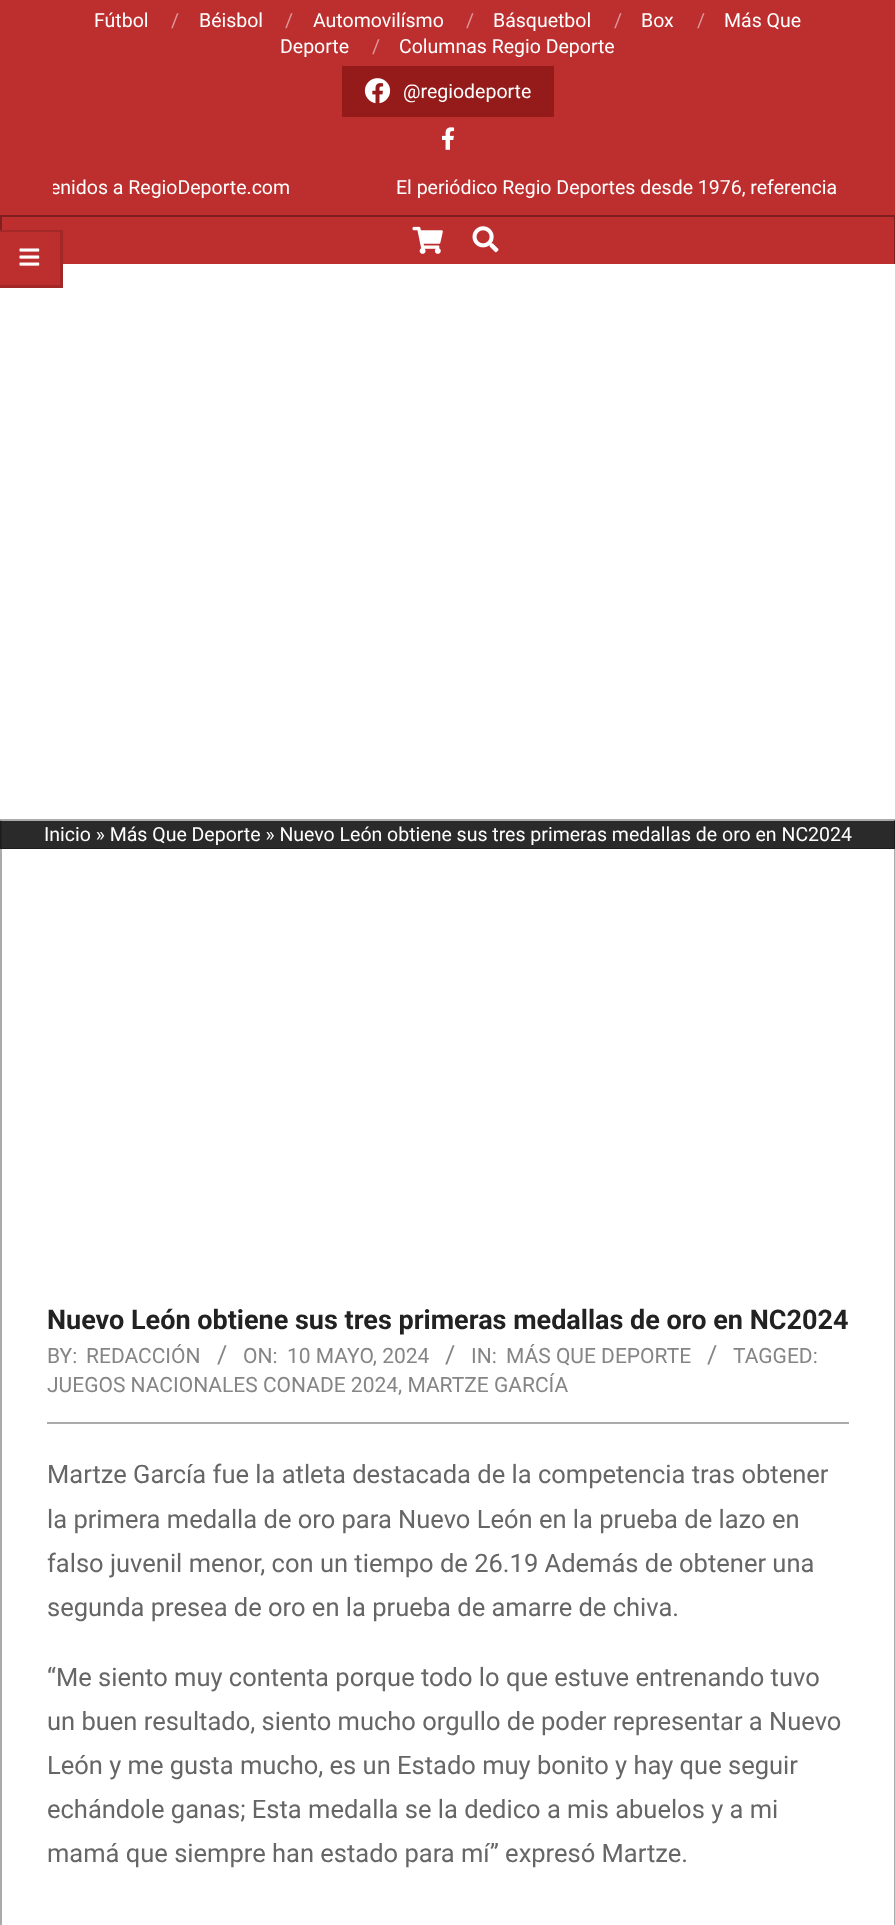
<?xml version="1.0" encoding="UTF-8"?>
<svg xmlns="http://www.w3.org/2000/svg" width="895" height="1925">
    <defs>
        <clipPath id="clip1"><rect x="53" y="173" width="790" height="31"/></clipPath>
    </defs>
    <rect width="100%" height="100%" fill="#FFFFFF"/>
    <rect x="0" y="0" width="895" height="215" fill="#BD2E2E"/>
    <text x="94" y="27" font-family="Roboto" font-size="19.5" fill="#FFFFFF">Fútbol</text>
    <text x="171" y="27" font-family="Roboto" font-size="19.5" fill="#DE9797">/</text>
    <text x="199" y="27" font-family="Roboto" font-size="19.5" fill="#FFFFFF">Béisbol</text>
    <text x="285" y="27" font-family="Roboto" font-size="19.5" fill="#DE9797">/</text>
    <text x="724" y="27" font-family="Roboto" font-size="19.5" fill="#FFFFFF">Más Que</text>
    <text x="280" y="53" font-family="Roboto" font-size="19.5" fill="#FFFFFF">Deporte</text>
    <text x="372" y="53" font-family="Roboto" font-size="19.5" fill="#DE9797">/</text>
    <text x="313" y="27" font-family="Roboto" font-size="19.5" fill="#FFFFFF">Automovilísmo</text>
    <text x="466" y="27" font-family="Roboto" font-size="19.5" fill="#DE9797">/</text>
    <text x="493" y="27" font-family="Roboto" font-size="19.5" fill="#FFFFFF">Básquetbol</text>
    <text x="614" y="27" font-family="Roboto" font-size="19.5" fill="#DE9797">/</text>
    <text x="641" y="27" font-family="Roboto" font-size="19.5" fill="#FFFFFF">Box</text>
    <text x="697" y="27" font-family="Roboto" font-size="19.5" fill="#DE9797">/</text>
    <text x="399" y="53" font-family="Roboto" font-size="19.5" fill="#FFFFFF">Columnas Regio Deporte</text>
    <rect x="342" y="66" width="212" height="51" fill="#951A1A"/>
    <image x="364" y="78" width="27" height="26" href="img_01.png"/>
    <text x="403" y="98" font-family="Roboto" font-size="19.5" fill="#FFFFFF">@regiodeporte</text>
    <image x="442" y="127" width="13" height="23" href="img_02.png"/>
    <g clip-path="url(#clip1)">
        <text x="50" y="194" font-family="Roboto" font-size="19.5" fill="#FFFFFF">enidos a RegioDeporte.com</text>
    </g>
    <text x="396" y="194" font-family="Roboto" font-size="19.5" fill="#FFFFFF">El periódico Regio Deportes desde 1976, referencia</text>
    <rect x="2" y="217" width="892" height="47" fill="#BD2E2E"/>
    <rect x="894" y="215" width="1" height="49" fill="#7F1F1F"/>
    <rect x="0" y="215" width="2" height="15" fill="#7F1F1F"/>
    <rect x="2" y="215" width="892" height="2" fill="#7F1F1F"/>
    <image x="412" y="226" width="31" height="28" href="img_03.png"/>
    <image x="472" y="226" width="27" height="27" href="img_04.png"/>
    <rect x="0" y="230" width="63" height="58" fill="#BD2E2E"/>
    <path d="M 0 230 H 63 L 60 232 H 0 Z" fill="#A32828"/>
    <path d="M 63 230 V 288 L 60 285 V 232 Z" fill="#000000" fill-opacity="0.14"/>
    <path d="M 63 288 H 0 V 285 H 60 Z" fill="#000000" fill-opacity="0.14"/>
    <image x="19" y="248" width="21" height="18" href="img_05.png"/>
    <rect x="0" y="821" width="895" height="28" fill="#2A2A2A"/>
    <path d="M 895.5 820.5 V 849 L 894 847.5 V 820.5 Z" fill="#1C1C1C"/>
    <path d="M 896 849 H 0 L 2 848 H 894 Z" fill="#1C1C1C"/>
    <path d="M 0 849 V 820.5 H 1.5 V 847.5 Z" fill="#000000" fill-opacity="0.33"/>
    <rect x="0" y="819" width="895" height="2" fill="#000000" fill-opacity="0.33"/>
    <text x="44" y="841" font-family="Roboto" font-size="19.5" fill="#FFFFFF">Inicio » Más Que Deporte » Nuevo León obtiene sus tres primeras medallas de oro en NC2024</text>
    <rect x="894" y="849" width="1" height="1076" fill="#ABABAB"/>
    <rect x="0" y="849" width="2" height="1076" fill="#ABABAB"/>
    <rect x="47" y="1422" width="802" height="2" fill="#ABABAB"/>
    <text x="47" y="1329" font-family="Roboto" font-size="27" font-weight="700" fill="#222222">Nuevo León obtiene sus tres primeras medallas de oro en NC2024</text>
    <text x="47" y="1363" font-family="Roboto" font-size="21" fill="#858585">BY:</text>
    <text x="86" y="1363" font-family="Roboto" font-size="21" fill="#858585">REDACCIÓN</text>
    <text x="217" y="1363" font-family="Roboto" font-size="25" fill="#858585">/</text>
    <text x="243" y="1363" font-family="Roboto" font-size="21" fill="#858585">ON:</text>
    <text x="287" y="1363" font-family="Roboto" font-size="21" fill="#858585">10 MAYO, 2024</text>
    <text x="445" y="1363" font-family="Roboto" font-size="25" fill="#858585">/</text>
    <text x="471" y="1363" font-family="Roboto" font-size="21" fill="#858585">IN:</text>
    <text x="506" y="1363" font-family="Roboto" font-size="21" fill="#858585">MÁS QUE DEPORTE</text>
    <text x="707" y="1363" font-family="Roboto" font-size="25" fill="#858585">/</text>
    <text x="733" y="1363" font-family="Roboto" font-size="21" fill="#858585">TAGGED:</text>
    <text x="47" y="1392" font-family="Roboto" font-size="21" fill="#858585">JUEGOS NACIONALES CONADE 2024, MARTZE GARCÍA</text>
    <text font-family="Roboto" font-size="25.5" fill="#666666">
        <tspan x="47" y="1483">Martze García fue la atleta destacada de la competencia tras obtener</tspan>
        <tspan x="47" y="1528">la primera medalla de oro para Nuevo León en la prueba de lazo en</tspan>
        <tspan x="47" y="1572">falso juvenil menor, con un tiempo de 26.19 Además de obtener una</tspan>
        <tspan x="47" y="1616">segunda presea de oro en la prueba de amarre de chiva.</tspan>
    </text>
    <text font-family="Roboto" font-size="25.5" fill="#666666">
        <tspan x="47" y="1686">“Me siento muy contenta porque todo lo que estuve entrenando tuvo</tspan>
        <tspan x="47" y="1730">un buen resultado, siento mucho orgullo de poder representar a Nuevo</tspan>
        <tspan x="47" y="1774">León y me gusta mucho, es un Estado muy bonito y hay que seguir</tspan>
        <tspan x="47" y="1818">echándole ganas; Esta medalla se la dedico a mis abuelos y a mi</tspan>
        <tspan x="47" y="1862">mamá que siempre han estado para mí” expresó Martze.</tspan>
    </text>
</svg>
